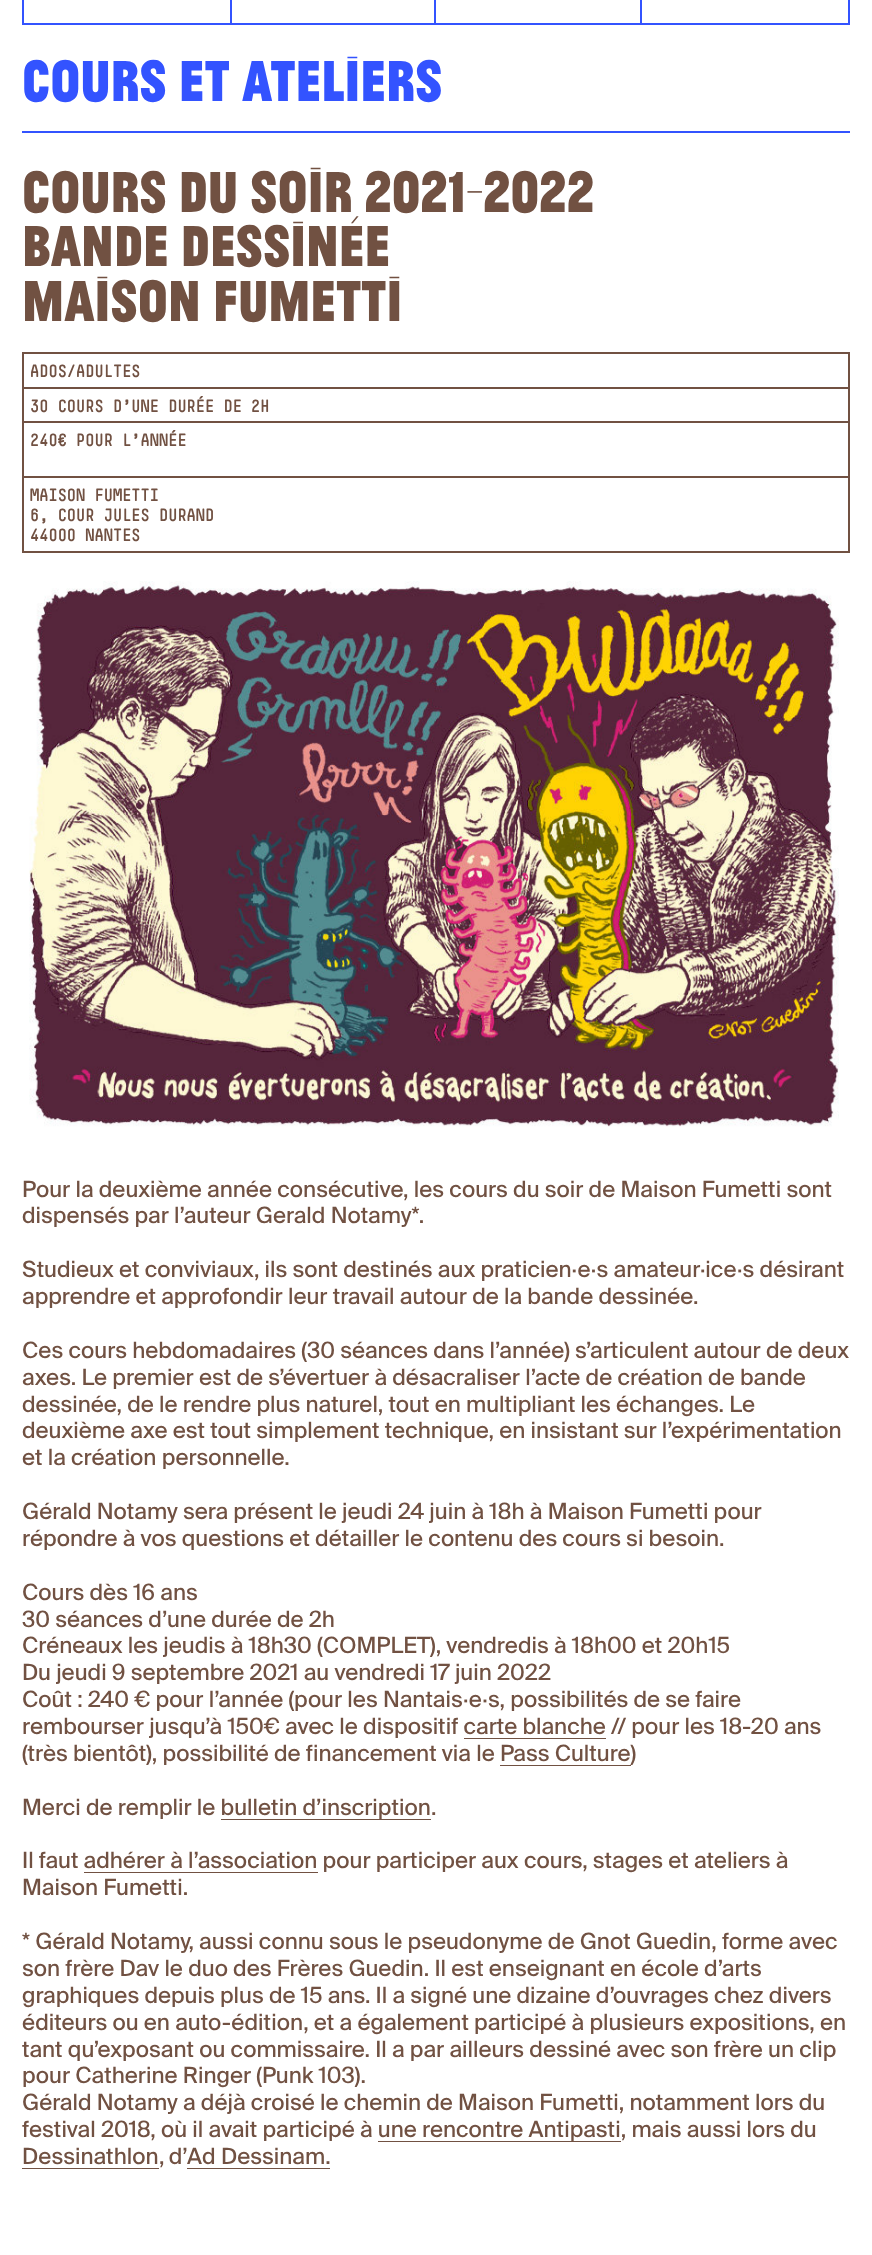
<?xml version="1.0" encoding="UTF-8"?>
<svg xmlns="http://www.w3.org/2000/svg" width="872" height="2255">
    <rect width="100%" height="100%" fill="#FFFFFF"/>
    <rect x="23" y="-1" width="826" height="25" fill="none" stroke="#3353FF" stroke-width="2"/>
    <rect x="434" y="0" width="2" height="23" fill="#3353FF"/>
    <rect x="230" y="0" width="2" height="23" fill="#3353FF"/>
    <rect x="640" y="0" width="2" height="23" fill="#3353FF"/>
    <rect x="22" y="131" width="828" height="2" fill="#3353FF"/>
    <text x="22" y="101" font-family="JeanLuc" font-size="60.5" font-weight="100" fill="#3353FF">Cours et ateliers</text>
    <text font-family="JeanLuc" font-size="60.5" font-weight="100" fill="#715142">
        <tspan x="22" y="212">Cours du soir 2021-2022</tspan>
        <tspan x="22" y="266">Bande dessinée</tspan>
        <tspan x="22" y="321">Maison Fumetti</tspan>
    </text>
    <rect x="23" y="353" width="826" height="199" fill="none" stroke="#715142" stroke-width="2"/>
    <rect x="24" y="387" width="824" height="2" fill="#715142"/>
    <text x="30" y="377" font-family="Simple" font-size="16.75" font-weight="700" fill="#715142">ADOS/ADULTES</text>
    <rect x="24" y="421" width="824" height="2" fill="#715142"/>
    <text x="30" y="412" font-family="Simple" font-size="16.75" font-weight="700" fill="#715142">30 COURS D'UNE DURÉE DE 2H</text>
    <rect x="24" y="476" width="824" height="2" fill="#715142"/>
    <text x="30" y="446" font-family="Simple" font-size="16.75" font-weight="700" fill="#715142">240€ POUR L'ANNÉE</text>
    <text font-family="Simple" font-size="16.75" font-weight="700" fill="#715142">
        <tspan x="30" y="501">MAISON FUMETTI</tspan>
        <tspan x="30" y="521">6, COUR JULES DURAND</tspan>
        <tspan x="30" y="541">44000 NANTES</tspan>
    </text>
    <image x="29" y="581" width="810" height="546" href="img_01.png"/>
    <text font-family="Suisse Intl" font-size="22.4" fill="#715142">
        <tspan x="22" y="1197">Pour la deuxième année consécutive, les cours du soir de Maison Fumetti sont</tspan>
        <tspan x="22" y="1223">dispensés par l’auteur Gerald Notamy*.</tspan>
    </text>
    <text font-family="Suisse Intl" font-size="22.4" fill="#715142">
        <tspan x="22" y="1277">Studieux et conviviaux, ils sont destinés aux praticien·e·s amateur·ice·s désirant</tspan>
        <tspan x="22" y="1304">apprendre et approfondir leur travail autour de la bande dessinée.</tspan>
    </text>
    <text font-family="Suisse Intl" font-size="22.4" fill="#715142">
        <tspan x="22" y="1358">Ces cours hebdomadaires (30 séances dans l’année) s’articulent autour de deux</tspan>
        <tspan x="22" y="1385">axes. Le premier est de s’évertuer à désacraliser l’acte de création de bande</tspan>
        <tspan x="22" y="1412">dessinée, de le rendre plus naturel, tout en multipliant les échanges. Le</tspan>
        <tspan x="22" y="1438">deuxième axe est tout simplement technique, en insistant sur l’expérimentation</tspan>
        <tspan x="22" y="1465">et la création personnelle.</tspan>
    </text>
    <text font-family="Suisse Intl" font-size="22.4" fill="#715142">
        <tspan x="22" y="1519">Gérald Notamy sera présent le jeudi 24 juin à 18h à Maison Fumetti pour</tspan>
        <tspan x="22" y="1546">répondre à vos questions et détailler le contenu des cours si besoin.</tspan>
    </text>
    <text font-family="Suisse Intl" font-size="22.4" fill="#715142">
        <tspan x="22" y="1600">Cours dès 16 ans</tspan>
        <tspan x="22" y="1627">30 séances d’une durée de 2h</tspan>
        <tspan x="22" y="1653">Créneaux les jeudis à 18h30 (COMPLET), vendredis à 18h00 et 20h15</tspan>
        <tspan x="22" y="1680">Du jeudi 9 septembre 2021 au vendredi 17 juin 2022</tspan>
        <tspan x="22" y="1707">Coût : 240 € pour l’année (pour les Nantais·e·s, possibilités de se faire</tspan>
        <tspan x="22" y="1734">rembourser jusqu’à 150€ avec le dispositif carte blanche // pour les 18-20 ans</tspan>
    </text>
    <rect x="464" y="1738" width="142" height="1" fill="#715142"/>
    <text x="22" y="1761" font-family="Suisse Intl" font-size="22.4" fill="#715142">(très bientôt), possibilité de financement via le Pass Culture)</text>
    <rect x="500" y="1765" width="131" height="1" fill="#715142"/>
    <text x="22" y="1815" font-family="Suisse Intl" font-size="22.4" fill="#715142">Merci de remplir le bulletin d’inscription.</text>
    <rect x="221" y="1819" width="210" height="1" fill="#715142"/>
    <text x="22" y="1868" font-family="Suisse Intl" font-size="22.4" fill="#715142">Il faut adhérer à l’association pour participer aux cours, stages et ateliers à</text>
    <rect x="84" y="1872" width="234" height="1" fill="#715142"/>
    <text x="22" y="1895" font-family="Suisse Intl" font-size="22.4" fill="#715142">Maison Fumetti.</text>
    <text font-family="Suisse Intl" font-size="22.4" fill="#715142">
        <tspan x="22" y="1949">* Gérald Notamy, aussi connu sous le pseudonyme de Gnot Guedin, forme avec</tspan>
        <tspan x="22" y="1976">son frère Dav le duo des Frères Guedin. Il est enseignant en école d’arts</tspan>
        <tspan x="22" y="2003">graphiques depuis plus de 15 ans. Il a signé une dizaine d’ouvrages chez divers</tspan>
        <tspan x="22" y="2030">éditeurs ou en auto-édition, et a également participé à plusieurs expositions, en</tspan>
        <tspan x="22" y="2057">tant qu’exposant ou commissaire. Il a par ailleurs dessiné avec son frère un clip</tspan>
        <tspan x="22" y="2083">pour Catherine Ringer (Punk 103).</tspan>
        <tspan x="22" y="2110">Gérald Notamy a déjà croisé le chemin de Maison Fumetti, notamment lors du</tspan>
        <tspan x="22" y="2137">festival 2018, où il avait participé à une rencontre Antipasti, mais aussi lors du</tspan>
    </text>
    <rect x="378" y="2141" width="243" height="1" fill="#715142"/>
    <text x="22" y="2164" font-family="Suisse Intl" font-size="22.4" fill="#715142">Dessinathlon</text>
    <rect x="22" y="2168" width="137" height="1" fill="#715142"/>
    <text x="159" y="2164" word-spacing="-1" font-family="Suisse Intl" font-size="22.4" fill="#715142">, d’</text>
    <text x="187" y="2164" font-family="Suisse Intl" font-size="22.4" fill="#715142">Ad Dessinam.</text>
    <rect x="187" y="2168" width="143" height="1" fill="#715142"/>
</svg>
